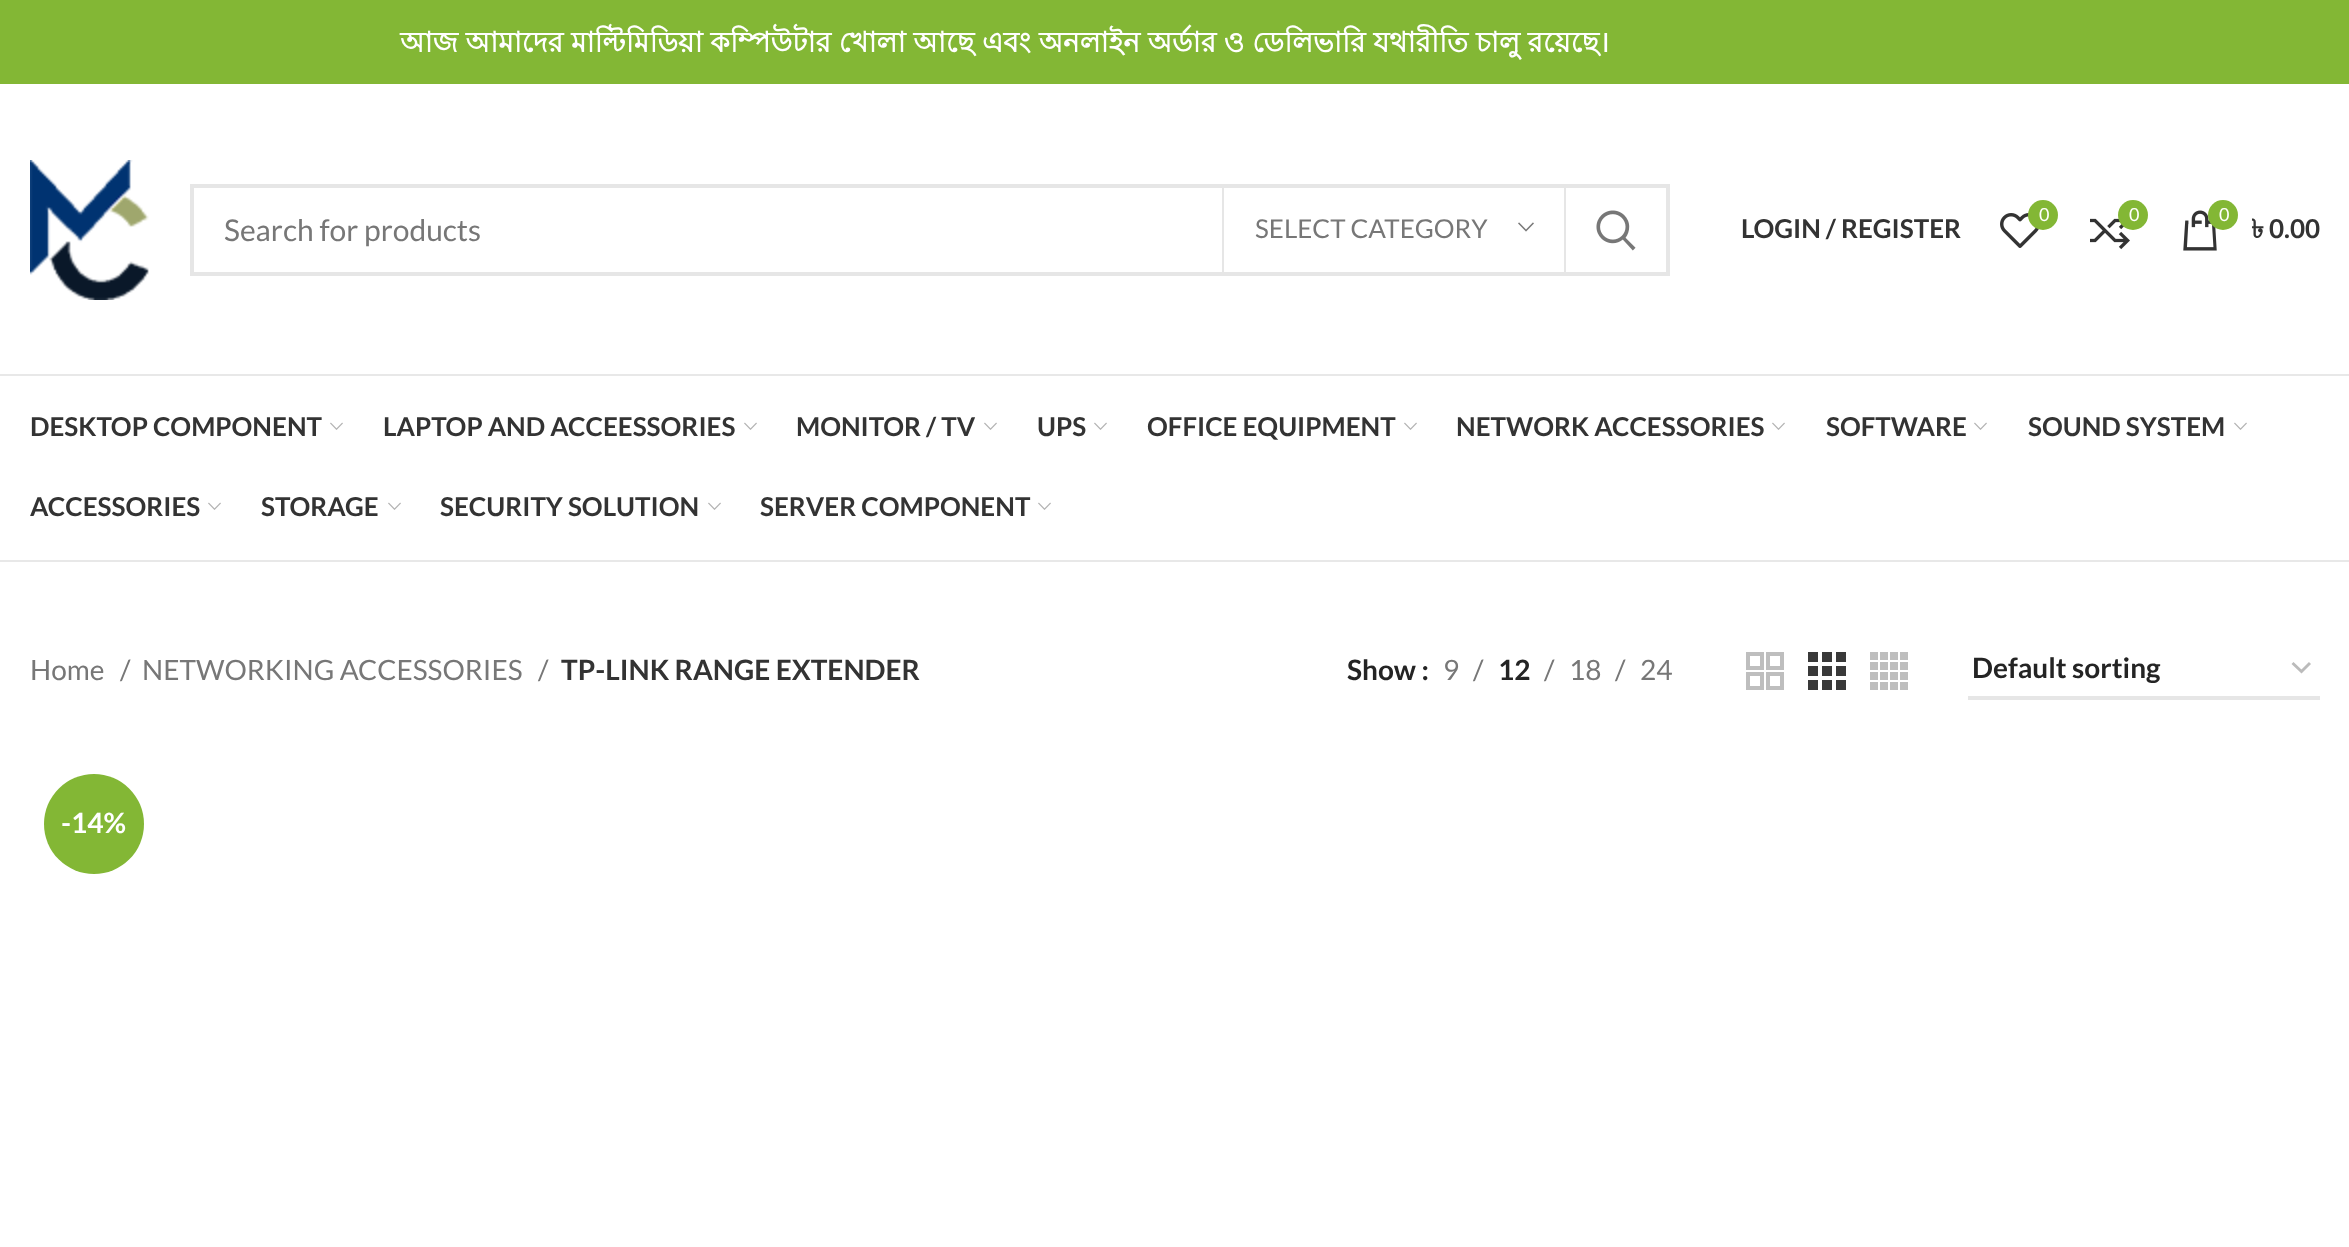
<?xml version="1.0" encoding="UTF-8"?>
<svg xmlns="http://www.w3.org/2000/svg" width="2349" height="1247">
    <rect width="100%" height="100%" fill="#FFFFFF"/>
    <rect x="0" y="0" width="2349" height="84" fill="#83B735"/>
    <text x="400" y="52" font-family="Lohit Bengali" font-size="28" font-weight="700" fill="#FFFFFF">আজ আমাদের মাল্টিমিডিয়া কম্পিউটার খোলা আছে এবং অনলাইন অর্ডার ও ডেলিভারি যথারীতি চালু রয়েছে।</text>
    <rect x="0" y="374" width="2349" height="2" fill="#E8E8E8"/>
    <image x="30" y="160" width="119" height="140" href="img_01.png"/>
    <rect x="192" y="186" width="1476" height="88" fill="none" stroke="#E6E6E6" stroke-width="4"/>
    <text x="224" y="241" font-family="Lato" font-size="30" fill="#777777">Search for products</text>
    <rect x="1564" y="188" width="2" height="84" fill="#E6E6E6"/>
    <rect x="1222" y="188" width="2" height="84" fill="#E6E6E6"/>
    <text x="1255" y="238" font-family="Lato" font-size="26" fill="#777777">SELECT CATEGORY</text>
    <image x="1518" y="222" width="16" height="10" href="img_02.png"/>
    <image x="1596" y="210" width="40" height="41" href="img_03.png"/>
    <text x="1741" y="238" font-family="Lato" font-size="26" font-weight="700" fill="#333333">LOGIN / REGISTER</text>
    <image x="2000" y="213" width="39" height="35" href="img_04.png"/>
    <circle cx="2043" cy="215" r="15" fill="#83B735"/>
    <text x="2039" y="221" font-family="Lato" font-size="18" fill="#FFFFFF">0</text>
    <image x="2090" y="214" width="40" height="36" href="img_05.png"/>
    <circle cx="2133" cy="215" r="15" fill="#83B735"/>
    <text x="2129" y="221" font-family="Lato" font-size="18" fill="#FFFFFF">0</text>
    <image x="2183" y="210" width="34" height="41" href="img_06.png"/>
    <circle cx="2223" cy="215" r="15" fill="#83B735"/>
    <text x="2219" y="221" font-family="Lato" font-size="18" fill="#FFFFFF">0</text>
    <text x="2251" y="238" font-family="Lohit Bengali" font-size="26" font-weight="700" fill="#333333">৳</text>
    <text x="2269" y="238" font-family="Lato" font-size="26" font-weight="700" fill="#333333">0.00</text>
    <rect x="0" y="560" width="2349" height="2" fill="#E8E8E8"/>
    <text x="30" y="436" font-family="Lato" font-size="26" font-weight="700" fill="#333333">DESKTOP COMPONENT</text>
    <image x="330" y="422" width="13" height="8" href="img_07.png"/>
    <text x="383" y="436" font-family="Lato" font-size="26" font-weight="700" fill="#333333">LAPTOP AND ACCEESSORIES</text>
    <image x="744" y="422" width="13" height="8" href="img_07.png"/>
    <text x="796" y="436" font-family="Lato" font-size="26" font-weight="700" fill="#333333">MONITOR / TV</text>
    <image x="984" y="422" width="13" height="8" href="img_07.png"/>
    <text x="1037" y="436" font-family="Lato" font-size="26" font-weight="700" fill="#333333">UPS</text>
    <image x="1094" y="422" width="13" height="8" href="img_07.png"/>
    <text x="1147" y="436" font-family="Lato" font-size="26" font-weight="700" fill="#333333">OFFICE EQUIPMENT</text>
    <image x="1404" y="422" width="13" height="8" href="img_07.png"/>
    <text x="1456" y="436" font-family="Lato" font-size="26" font-weight="700" fill="#333333">NETWORK ACCESSORIES</text>
    <image x="1772" y="422" width="13" height="8" href="img_07.png"/>
    <text x="1826" y="436" font-family="Lato" font-size="26" font-weight="700" fill="#333333">SOFTWARE</text>
    <image x="1974" y="422" width="13" height="8" href="img_07.png"/>
    <text x="2028" y="436" font-family="Lato" font-size="26" font-weight="700" fill="#333333">SOUND SYSTEM</text>
    <image x="2234" y="422" width="13" height="8" href="img_07.png"/>
    <text x="30" y="516" font-family="Lato" font-size="26" font-weight="700" fill="#333333">ACCESSORIES</text>
    <image x="208" y="502" width="13" height="8" href="img_07.png"/>
    <text x="261" y="516" font-family="Lato" font-size="26" font-weight="700" fill="#333333">STORAGE</text>
    <image x="388" y="502" width="13" height="8" href="img_07.png"/>
    <text x="440" y="516" font-family="Lato" font-size="26" font-weight="700" fill="#333333">SECURITY SOLUTION</text>
    <image x="708" y="502" width="13" height="8" href="img_07.png"/>
    <text x="760" y="516" font-family="Lato" font-size="26" font-weight="700" fill="#333333">SERVER COMPONENT</text>
    <image x="1038" y="502" width="13" height="8" href="img_07.png"/>
    <text x="30" y="680" font-family="Lato" font-size="28" fill="#777777">Home</text>
    <text x="120" y="680" font-family="Lato" font-size="28" fill="#777777">/</text>
    <text x="142" y="680" font-family="Lato" font-size="28" fill="#777777">NETWORKING ACCESSORIES</text>
    <text x="538" y="680" font-family="Lato" font-size="28" fill="#777777">/</text>
    <text x="561" y="680" font-family="Lato" font-size="28" font-weight="700" fill="#333333">TP-LINK RANGE EXTENDER</text>
    <text x="1347" y="680" font-family="Lato" font-size="28" font-weight="700" fill="#242424">Show :</text>
    <text x="1443" y="680" font-family="Lato" font-size="28" fill="#777777">9</text>
    <text x="1473" y="680" font-family="Lato" font-size="28" fill="#777777">/</text>
    <text x="1498" y="680" font-family="Lato" font-size="28" font-weight="700" fill="#242424">12</text>
    <text x="1544" y="680" font-family="Lato" font-size="28" fill="#777777">/</text>
    <text x="1569" y="680" font-family="Lato" font-size="28" fill="#777777">18</text>
    <text x="1615" y="680" font-family="Lato" font-size="28" fill="#777777">/</text>
    <text x="1640" y="680" font-family="Lato" font-size="28" fill="#777777">24</text>
    <image x="1746" y="652" width="38" height="38" href="img_08.png"/>
    <image x="1808" y="652" width="38" height="38" href="img_09.png"/>
    <image x="1870" y="652" width="38" height="38" href="img_10.png"/>
    <path d="M 2292.5 663 L 2301.5 671.5 L 2310 663" fill="none" stroke="#BBBBBB" stroke-width="2.9"/>
    <rect x="1968" y="696" width="352" height="4" fill="#E6E6E6"/>
    <text x="1972" y="678" font-family="Lato" font-size="28" font-weight="700" fill="#242424">Default sorting</text>
    <circle cx="94" cy="824" r="50" fill="#83B735"/>
    <text x="61" y="833" font-family="Lato" font-size="28" font-weight="700" fill="#FFFFFF">-14%</text>
</svg>
